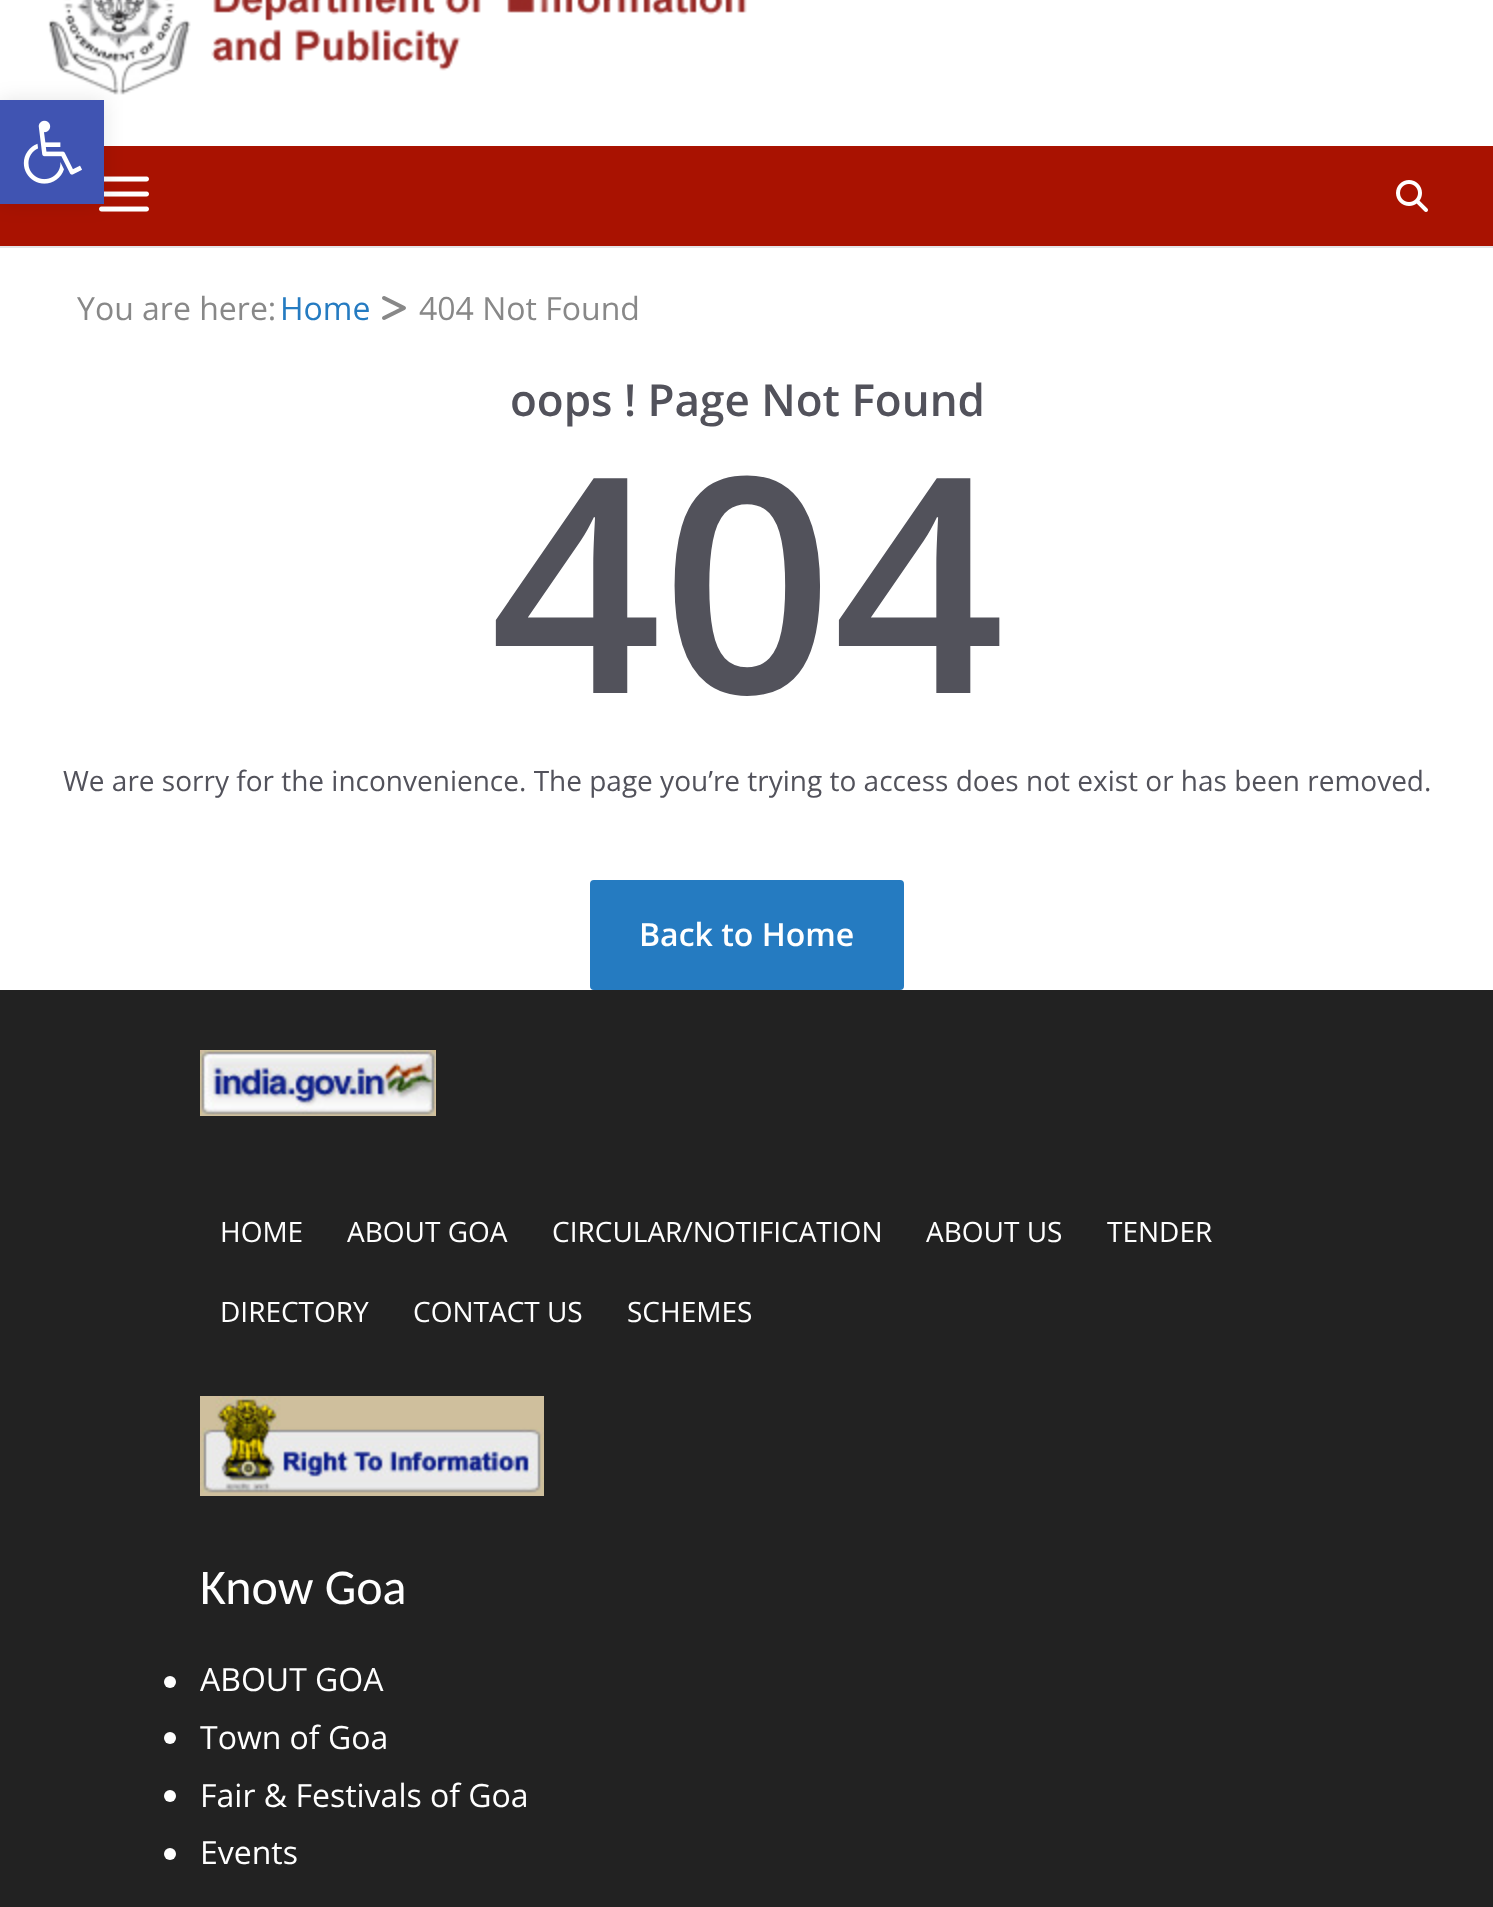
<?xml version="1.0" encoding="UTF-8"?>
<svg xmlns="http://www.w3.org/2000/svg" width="1493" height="1907">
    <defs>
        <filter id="blur1" x="-50%" y="-200%" width="200%" height="500%"><feGaussianBlur stdDeviation="10"/></filter>
    </defs>
    <rect width="100%" height="100%" fill="#FFFFFF"/>
    <image x="48" y="0" width="699" height="95" href="img_02.png"/>
    <rect x="0" y="146" width="1493" height="100" fill="#A91201"/>
    <image x="99" y="176" width="50" height="36" href="img_03.png"/>
    <rect x="0" y="100" width="104" height="104" fill="#000000" fill-opacity="0.1" filter="url(#blur1)"/>
    <rect x="0" y="100" width="104" height="104" fill="#4054B2"/>
    <image x="23" y="120" width="59" height="64" href="img_01.png"/>
    <rect x="0" y="246" width="1493" height="2" fill="#E4E4E7"/>
    <image x="1396" y="180" width="32" height="32" href="img_04.png"/>
    <text x="77" y="320" font-family="Open Sans" font-size="32" fill="#888888">You are here:</text>
    <text x="280" y="320" font-family="Open Sans" font-size="32" fill="#257BC1">Home</text>
    <image x="382" y="296" width="24" height="24" href="img_05.png"/>
    <text x="419" y="320" font-family="Open Sans" font-size="32" fill="#888888">404 Not Found</text>
    <text x="510" y="416" font-family="Open Sans" font-size="44" font-weight="600" fill="#52525B">oops ! Page Not Found</text>
    <text x="490" y="693" font-family="Open Sans" font-size="300" font-weight="600" fill="#52525B">404</text>
    <text x="63" y="791" font-family="Open Sans" font-size="28" fill="#52525B">We are sorry for the inconvenience. The page you’re trying to access does not exist or has been removed.</text>
    <rect x="591" y="881" width="312" height="108" rx="3" fill="#257BC1" stroke="#257BC1" stroke-width="2"/>
    <text x="639" y="946" font-family="Open Sans" font-size="32" font-weight="600" fill="#FFFFFF">Back to Home</text>
    <rect x="0" y="990" width="1493" height="917" fill="#222222"/>
    <image x="200" y="1050" width="236" height="66" href="img_06.png"/>
    <text x="220" y="1242" font-family="Open Sans" font-size="28" fill="#FFFFFF">HOME</text>
    <text x="347" y="1242" font-family="Open Sans" font-size="28" fill="#FFFFFF">ABOUT GOA</text>
    <text x="552" y="1242" font-family="Open Sans" font-size="28" fill="#FFFFFF">CIRCULAR/NOTIFICATION</text>
    <text x="926" y="1242" font-family="Open Sans" font-size="28" fill="#FFFFFF">ABOUT US</text>
    <text x="1107" y="1242" font-family="Open Sans" font-size="28" fill="#FFFFFF">TENDER</text>
    <text x="220" y="1322" font-family="Open Sans" font-size="28" fill="#FFFFFF">DIRECTORY</text>
    <text x="413" y="1322" font-family="Open Sans" font-size="28" fill="#FFFFFF">CONTACT US</text>
    <text x="627" y="1322" font-family="Open Sans" font-size="28" fill="#FFFFFF">SCHEMES</text>
    <image x="200" y="1396" width="344" height="100" href="img_07.png"/>
    <text x="200" y="1604" font-family="Carlito" font-size="50" fill="#FFFFFF">Know Goa</text>
    <circle cx="170" cy="1682" r="6" fill="#FFFFFF"/>
    <text x="200" y="1691" font-family="Open Sans" font-size="32" fill="#FFFFFF">ABOUT GOA</text>
    <circle cx="170" cy="1738" r="6" fill="#FFFFFF"/>
    <text x="200" y="1749" font-family="Open Sans" font-size="32" fill="#FFFFFF">Town of Goa</text>
    <circle cx="170" cy="1796" r="6" fill="#FFFFFF"/>
    <text x="200" y="1807" font-family="Open Sans" font-size="32" fill="#FFFFFF">Fair &amp; Festivals of Goa</text>
    <circle cx="170" cy="1854" r="6" fill="#FFFFFF"/>
    <text x="200" y="1864" font-family="Open Sans" font-size="32" fill="#FFFFFF">Events</text>
</svg>
